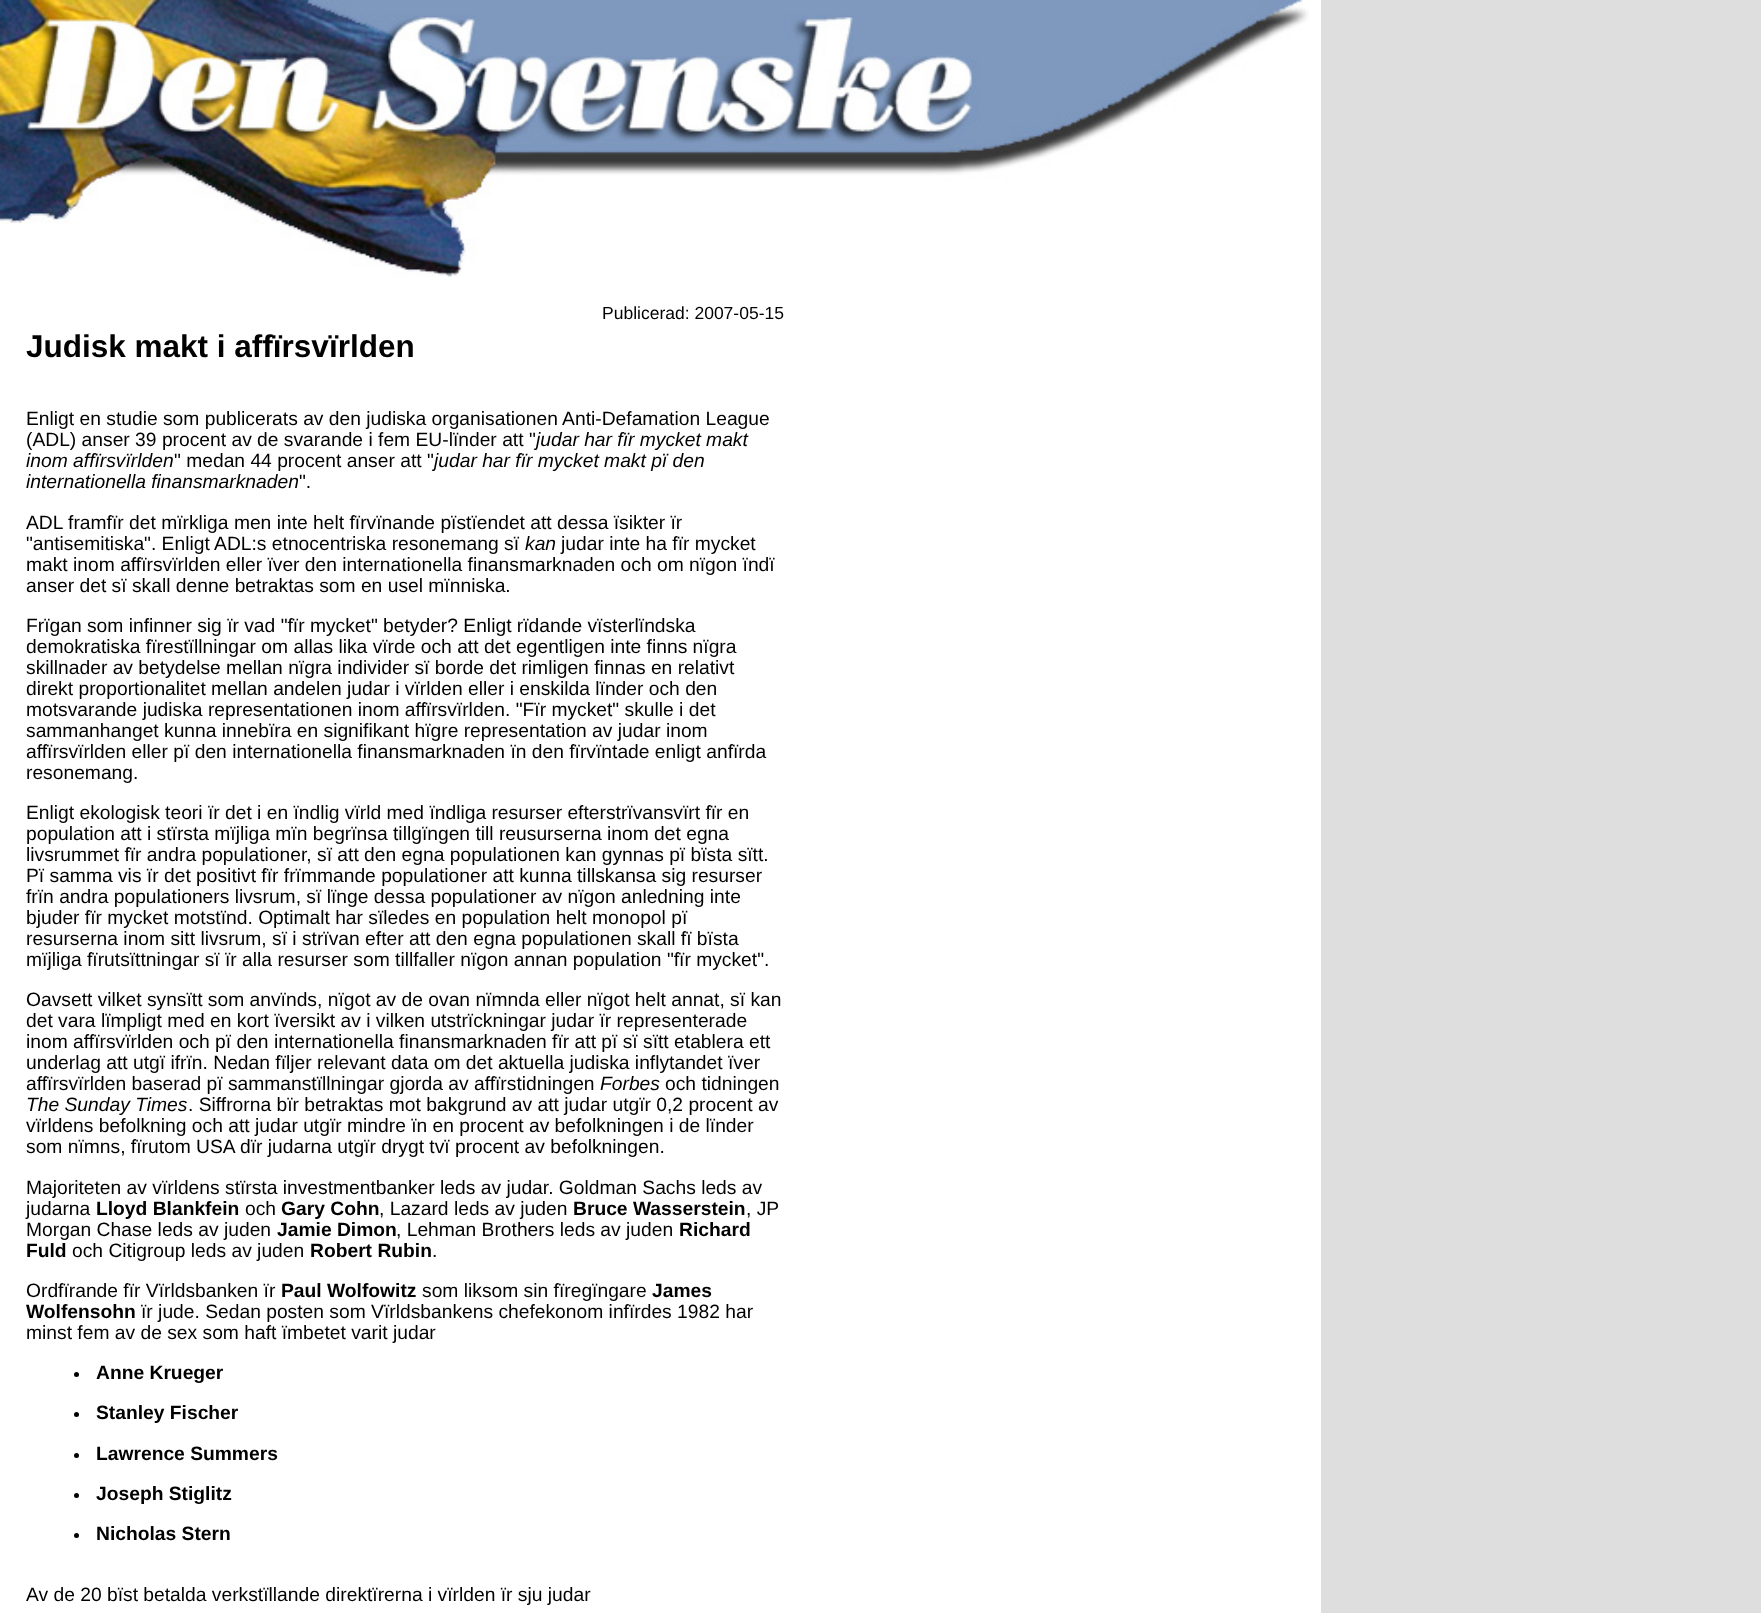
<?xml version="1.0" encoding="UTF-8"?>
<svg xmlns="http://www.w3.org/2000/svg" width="1761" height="1613">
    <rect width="100%" height="100%" fill="#DEDEDE"/>
    <rect x="0" y="0" width="1321" height="1613" fill="#FFFFFF"/>
    <image x="0" y="0" width="1309" height="277" href="img_01.png"/>
    <text x="602" y="319" font-family="Liberation Sans" font-size="17.5" fill="#000000">Publicerad: 2007-05-15</text>
    <text x="26" y="357" font-family="Liberation Sans" font-size="31.5" font-weight="700" fill="#000000">Judisk makt i affïrsvïrlden</text>
    <text font-family="Liberation Sans" font-size="19.25" fill="#000000">
        <tspan x="26" y="425">Enligt en studie som publicerats av den judiska organisationen Anti-Defamation League</tspan>
        <tspan x="26" y="446">(ADL) anser 39 procent av de svarande i fem EU-lïnder att "</tspan>
    </text>
    <text x="536" y="446" font-family="Liberation Sans" font-size="19.25" font-style="italic" fill="#000000">judar har fïr mycket makt</text>
    <text x="26" y="467" font-family="Liberation Sans" font-size="19.25" font-style="italic" fill="#000000">inom affïrsvïrlden</text>
    <text x="174" y="467" font-family="Liberation Sans" font-size="19.25" fill="#000000">" medan 44 procent anser att "</text>
    <text x="434" y="467" font-family="Liberation Sans" font-size="19.25" font-style="italic" fill="#000000">judar har fïr mycket makt pï den</text>
    <text x="26" y="488" font-family="Liberation Sans" font-size="19.25" font-style="italic" fill="#000000">internationella finansmarknaden</text>
    <text x="299" y="488" font-family="Liberation Sans" font-size="19.25" fill="#000000">".</text>
    <text font-family="Liberation Sans" font-size="19.25" fill="#000000">
        <tspan x="26" y="529">ADL framfïr det mïrkliga men inte helt fïrvïnande pïstïendet att dessa ïsikter ïr</tspan>
        <tspan x="26" y="550">"antisemitiska". Enligt ADL:s etnocentriska resonemang sï</tspan>
    </text>
    <text x="525" y="550" font-family="Liberation Sans" font-size="19.25" font-style="italic" fill="#000000">kan</text>
    <text x="561" y="550" font-family="Liberation Sans" font-size="19.25" fill="#000000">judar inte ha fïr mycket</text>
    <text font-family="Liberation Sans" font-size="19.25" fill="#000000">
        <tspan x="26" y="571">makt inom affïrsvïrlden eller ïver den internationella finansmarknaden och om nïgon ïndï</tspan>
        <tspan x="26" y="592">anser det sï skall denne betraktas som en usel mïnniska.</tspan>
    </text>
    <text font-family="Liberation Sans" font-size="19.25" fill="#000000">
        <tspan x="26" y="632">Frïgan som infinner sig ïr vad "fïr mycket" betyder? Enligt rïdande vïsterlïndska</tspan>
        <tspan x="26" y="653">demokratiska fïrestïllningar om allas lika vïrde och att det egentligen inte finns nïgra</tspan>
        <tspan x="26" y="674">skillnader av betydelse mellan nïgra individer sï borde det rimligen finnas en relativt</tspan>
        <tspan x="26" y="695">direkt proportionalitet mellan andelen judar i vïrlden eller i enskilda lïnder och den</tspan>
        <tspan x="26" y="716">motsvarande judiska representationen inom affïrsvïrlden. "Fïr mycket" skulle i det</tspan>
        <tspan x="26" y="737">sammanhanget kunna innebïra en signifikant hïgre representation av judar inom</tspan>
        <tspan x="26" y="758">affïrsvïrlden eller pï den internationella finansmarknaden ïn den fïrvïntade enligt anfïrda</tspan>
        <tspan x="26" y="779">resonemang.</tspan>
    </text>
    <text font-family="Liberation Sans" font-size="19.25" fill="#000000">
        <tspan x="26" y="819">Enligt ekologisk teori ïr det i en ïndlig vïrld med ïndliga resurser efterstrïvansvïrt fïr en</tspan>
        <tspan x="26" y="840">population att i stïrsta mïjliga mïn begrïnsa tillgïngen till reusurserna inom det egna</tspan>
        <tspan x="26" y="861">livsrummet fïr andra populationer, sï att den egna populationen kan gynnas pï bïsta sïtt.</tspan>
        <tspan x="26" y="882">Pï samma vis ïr det positivt fïr frïmmande populationer att kunna tillskansa sig resurser</tspan>
        <tspan x="26" y="903">frïn andra populationers livsrum, sï lïnge dessa populationer av nïgon anledning inte</tspan>
        <tspan x="26" y="924">bjuder fïr mycket motstïnd. Optimalt har sïledes en population helt monopol pï</tspan>
        <tspan x="26" y="945">resurserna inom sitt livsrum, sï i strïvan efter att den egna populationen skall fï bïsta</tspan>
        <tspan x="26" y="966">mïjliga fïrutsïttningar sï ïr alla resurser som tillfaller nïgon annan population "fïr mycket".</tspan>
    </text>
    <text font-family="Liberation Sans" font-size="19.25" fill="#000000">
        <tspan x="26" y="1006">Oavsett vilket synsïtt som anvïnds, nïgot av de ovan nïmnda eller nïgot helt annat, sï kan</tspan>
        <tspan x="26" y="1027">det vara lïmpligt med en kort ïversikt av i vilken utstrïckningar judar ïr representerade</tspan>
        <tspan x="26" y="1048">inom affïrsvïrlden och pï den internationella finansmarknaden fïr att pï sï sïtt etablera ett</tspan>
        <tspan x="26" y="1069">underlag att utgï ifrïn. Nedan fïljer relevant data om det aktuella judiska inflytandet ïver</tspan>
        <tspan x="26" y="1090">affïrsvïrlden baserad pï sammanstïllningar gjorda av affïrstidningen</tspan>
    </text>
    <text x="600" y="1090" font-family="Liberation Sans" font-size="19.25" font-style="italic" fill="#000000">Forbes</text>
    <text x="665" y="1090" font-family="Liberation Sans" font-size="19.25" fill="#000000">och tidningen</text>
    <text x="26" y="1111" font-family="Liberation Sans" font-size="19.25" font-style="italic" fill="#000000">The Sunday Times</text>
    <text x="188" y="1111" font-family="Liberation Sans" font-size="19.25" fill="#000000">. Siffrorna bïr betraktas mot bakgrund av att judar utgïr 0,2 procent av</text>
    <text font-family="Liberation Sans" font-size="19.25" fill="#000000">
        <tspan x="26" y="1132">vïrldens befolkning och att judar utgïr mindre ïn en procent av befolkningen i de lïnder</tspan>
        <tspan x="26" y="1153">som nïmns, fïrutom USA dïr judarna utgïr drygt tvï procent av befolkningen.</tspan>
    </text>
    <text font-family="Liberation Sans" font-size="19.25" fill="#000000">
        <tspan x="26" y="1194">Majoriteten av vïrldens stïrsta investmentbanker leds av judar. Goldman Sachs leds av</tspan>
        <tspan x="26" y="1215">judarna</tspan>
    </text>
    <text x="96" y="1215" font-family="Liberation Sans" font-size="19.25" font-weight="700" fill="#000000">Lloyd Blankfein</text>
    <text x="245" y="1215" font-family="Liberation Sans" font-size="19.25" fill="#000000">och</text>
    <text x="281" y="1215" font-family="Liberation Sans" font-size="19.25" font-weight="700" fill="#000000">Gary Cohn</text>
    <text x="379" y="1215" font-family="Liberation Sans" font-size="19.25" fill="#000000">, Lazard leds av juden</text>
    <text x="573" y="1215" font-family="Liberation Sans" font-size="19.25" font-weight="700" fill="#000000">Bruce Wasserstein</text>
    <text x="746" y="1215" font-family="Liberation Sans" font-size="19.25" fill="#000000">, JP</text>
    <text x="26" y="1236" font-family="Liberation Sans" font-size="19.25" fill="#000000">Morgan Chase leds av juden</text>
    <text x="277" y="1236" font-family="Liberation Sans" font-size="19.25" font-weight="700" fill="#000000">Jamie Dimon</text>
    <text x="396" y="1236" font-family="Liberation Sans" font-size="19.25" fill="#000000">, Lehman Brothers leds av juden</text>
    <text x="679" y="1236" font-family="Liberation Sans" font-size="19.25" font-weight="700" fill="#000000">Richard</text>
    <text x="26" y="1257" font-family="Liberation Sans" font-size="19.25" font-weight="700" fill="#000000">Fuld</text>
    <text x="72" y="1257" font-family="Liberation Sans" font-size="19.25" fill="#000000">och Citigroup leds av juden</text>
    <text x="310" y="1257" font-family="Liberation Sans" font-size="19.25" font-weight="700" fill="#000000">Robert Rubin</text>
    <text x="432" y="1257" font-family="Liberation Sans" font-size="19.25" fill="#000000">.</text>
    <text x="26" y="1297" font-family="Liberation Sans" font-size="19.25" fill="#000000">Ordfïrande fïr Vïrldsbanken ïr</text>
    <text x="281" y="1297" font-family="Liberation Sans" font-size="19.25" font-weight="700" fill="#000000">Paul Wolfowitz</text>
    <text x="422" y="1297" font-family="Liberation Sans" font-size="19.25" fill="#000000">som liksom sin fïregïngare</text>
    <text x="652" y="1297" font-family="Liberation Sans" font-size="19.25" font-weight="700" fill="#000000">James</text>
    <text x="26" y="1318" font-family="Liberation Sans" font-size="19.25" font-weight="700" fill="#000000">Wolfensohn</text>
    <text x="141" y="1318" font-family="Liberation Sans" font-size="19.25" fill="#000000">ïr jude. Sedan posten som Vïrldsbankens chefekonom infïrdes 1982 har</text>
    <text x="26" y="1339" font-family="Liberation Sans" font-size="19.25" fill="#000000">minst fem av de sex som haft ïmbetet varit judar</text>
    <circle cx="76.5" cy="1374.5" r="2.5" fill="#000000"/>
    <text x="96" y="1379" font-family="Liberation Sans" font-size="19.25" font-weight="700" fill="#000000">Anne Krueger</text>
    <circle cx="76.5" cy="1414.5" r="2.5" fill="#000000"/>
    <text x="96" y="1419" font-family="Liberation Sans" font-size="19.25" font-weight="700" fill="#000000">Stanley Fischer</text>
    <circle cx="76.5" cy="1455.5" r="2.5" fill="#000000"/>
    <text x="96" y="1460" font-family="Liberation Sans" font-size="19.25" font-weight="700" fill="#000000">Lawrence Summers</text>
    <circle cx="76.5" cy="1495.5" r="2.5" fill="#000000"/>
    <text x="96" y="1500" font-family="Liberation Sans" font-size="19.25" font-weight="700" fill="#000000">Joseph Stiglitz</text>
    <circle cx="76.5" cy="1535.5" r="2.5" fill="#000000"/>
    <text x="96" y="1540" font-family="Liberation Sans" font-size="19.25" font-weight="700" fill="#000000">Nicholas Stern</text>
    <text x="26" y="1601" font-family="Liberation Sans" font-size="19.25" fill="#000000">Av de 20 bïst betalda verkstïllande direktïrerna i vïrlden ïr sju judar</text>
</svg>
